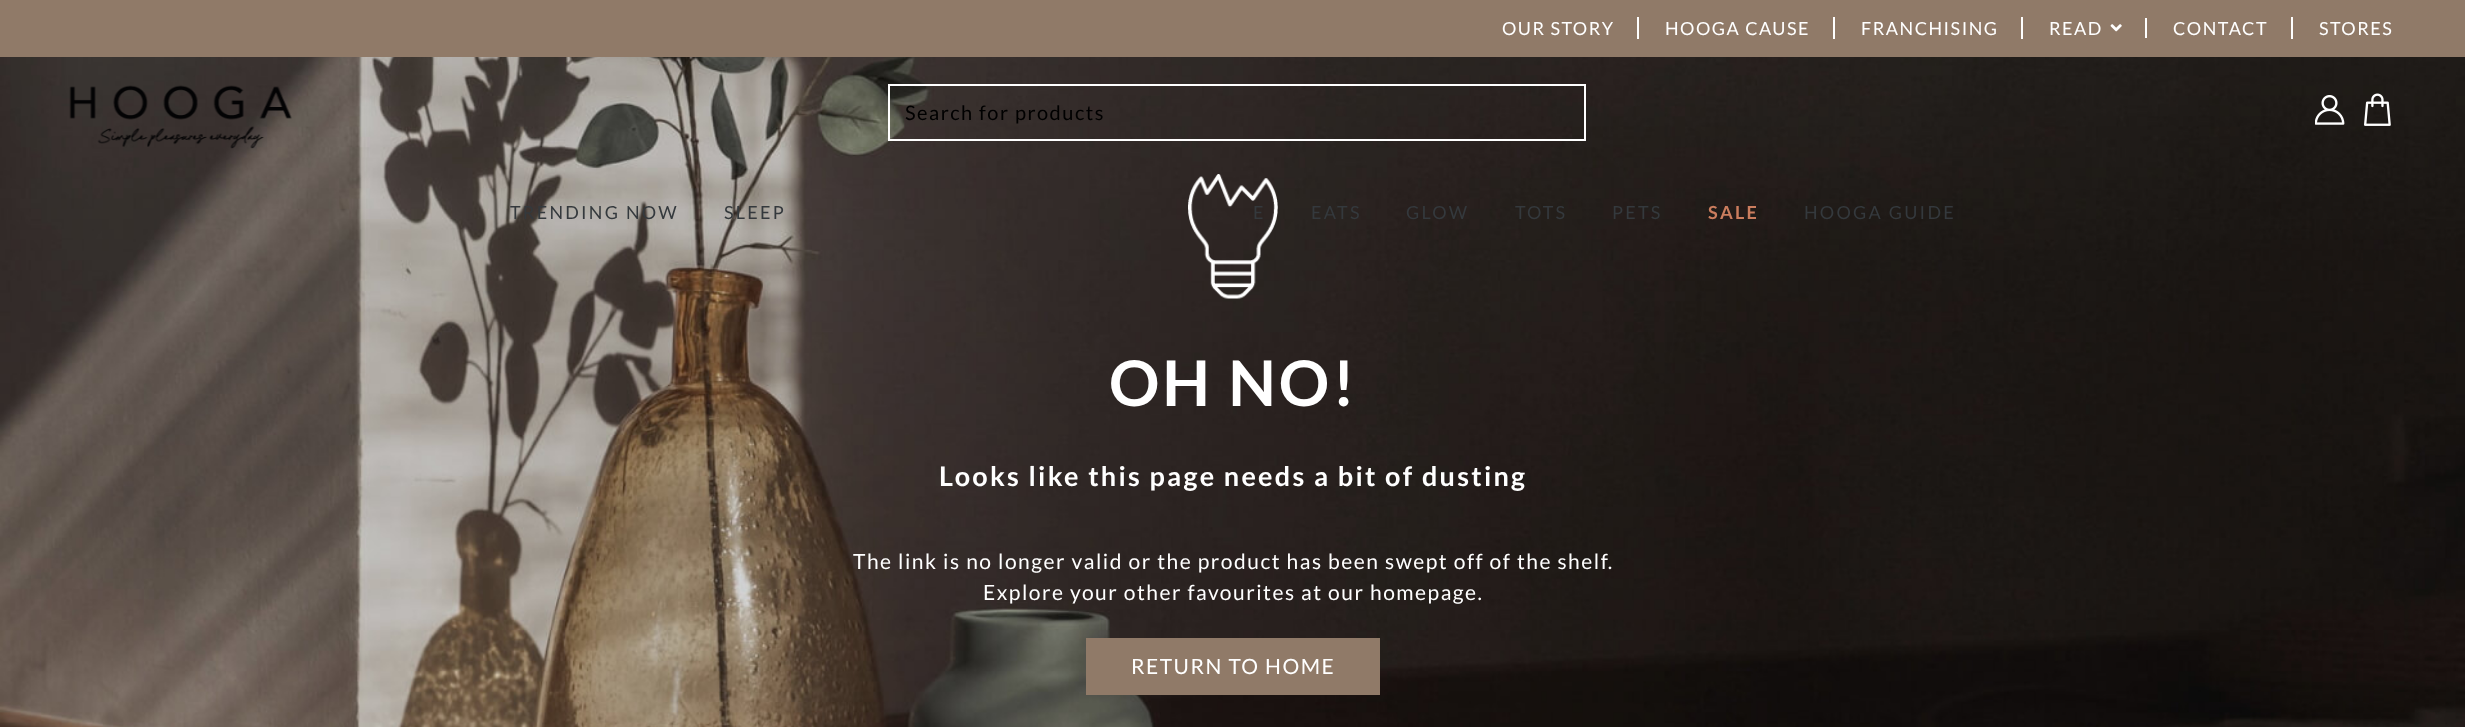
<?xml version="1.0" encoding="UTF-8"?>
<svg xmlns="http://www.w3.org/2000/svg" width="2465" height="727">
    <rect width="100%" height="100%" fill="#FFFFFF"/>
    <rect x="0" y="0" width="2465" height="57" fill="#907A68"/>
    <text x="1502" y="35" font-family="Lato" font-size="18" letter-spacing="1.5" fill="#FFFFFF">OUR STORY</text>
    <rect x="1637" y="17" width="2" height="22" fill="#FFFFFF"/>
    <text x="1665" y="35" font-family="Lato" font-size="18" letter-spacing="1.5" fill="#FFFFFF">HOOGA CAUSE</text>
    <rect x="1833" y="17" width="2" height="22" fill="#FFFFFF"/>
    <text x="1861" y="35" font-family="Lato" font-size="18" letter-spacing="1.5" fill="#FFFFFF">FRANCHISING</text>
    <rect x="2021" y="17" width="2" height="22" fill="#FFFFFF"/>
    <text x="2049" y="35" font-family="Lato" font-size="18" letter-spacing="1.5" fill="#FFFFFF">READ</text>
    <rect x="2145" y="18" width="2" height="20" fill="#FFFFFF"/>
    <image x="2110" y="24" width="12" height="8" href="img_01.png"/>
    <text x="2173" y="35" font-family="Lato" font-size="18" letter-spacing="1.5" fill="#FFFFFF">CONTACT</text>
    <rect x="2291" y="17" width="2" height="22" fill="#FFFFFF"/>
    <text x="2319" y="35" font-family="Lato" font-size="18" letter-spacing="1.5" fill="#FFFFFF">STORES</text>
    <image x="0" y="57" width="2465" height="670" href="img_05.png"/>
    <image x="69" y="85" width="223" height="64" href="img_02.png"/>
    <rect x="889" y="85" width="696" height="55" fill="none" stroke="#FFFFFF" stroke-width="2"/>
    <text x="905" y="120" font-family="Lato" font-size="20" letter-spacing="1.5" fill="#000000">Search for products</text>
    <image x="2315" y="95" width="30" height="30" href="img_03.png"/>
    <image x="2364" y="93" width="27" height="33" href="img_04.png"/>
    <text x="510" y="219" font-family="Lato" font-size="18" letter-spacing="2.25" fill="#34393D">TRENDING NOW</text>
    <text x="724" y="219" font-family="Lato" font-size="18" letter-spacing="2.25" fill="#34393D">SLEEP</text>
    <image x="1188" y="174" width="90" height="125" href="img_06.png"/>
    <text x="1253" y="219" font-family="Lato" font-size="18" letter-spacing="2.25" fill="#34393D">E</text>
    <text x="1311" y="219" font-family="Lato" font-size="18" letter-spacing="2.25" fill="#34393D">EATS</text>
    <text x="1406" y="219" font-family="Lato" font-size="18" letter-spacing="2.25" fill="#34393D">GLOW</text>
    <text x="1515" y="219" font-family="Lato" font-size="18" letter-spacing="2.25" fill="#34393D">TOTS</text>
    <text x="1612" y="219" font-family="Lato" font-size="18" letter-spacing="2.25" fill="#34393D">PETS</text>
    <text x="1708" y="219" font-family="Lato" font-size="18" font-weight="700" letter-spacing="2.25" fill="#CB7D5E">SALE</text>
    <text x="1804" y="219" font-family="Lato" font-size="18" letter-spacing="2.25" fill="#34393D">HOOGA GUIDE</text>
    <text x="1109" y="406" font-family="Lato" font-size="63" font-weight="700" letter-spacing="3" fill="#FFFFFF">OH NO!</text>
    <text x="939" y="486" font-family="Lato" font-size="27" font-weight="700" letter-spacing="2.25" fill="#FFFFFF">Looks like this page needs a bit of dusting</text>
    <text x="853" y="569" font-family="Lato" font-size="21" letter-spacing="1.5" fill="#FFFFFF">The link is no longer valid or the product has been swept off of the shelf.</text>
    <text x="983" y="600" font-family="Lato" font-size="21" letter-spacing="1.5" fill="#FFFFFF">Explore your other favourites at our homepage.</text>
    <rect x="1086" y="638" width="294" height="57" fill="#907A68"/>
    <text x="1131" y="674" font-family="Lato" font-size="21" letter-spacing="1.5" fill="#FFFFFF">RETURN TO HOME</text>
</svg>
